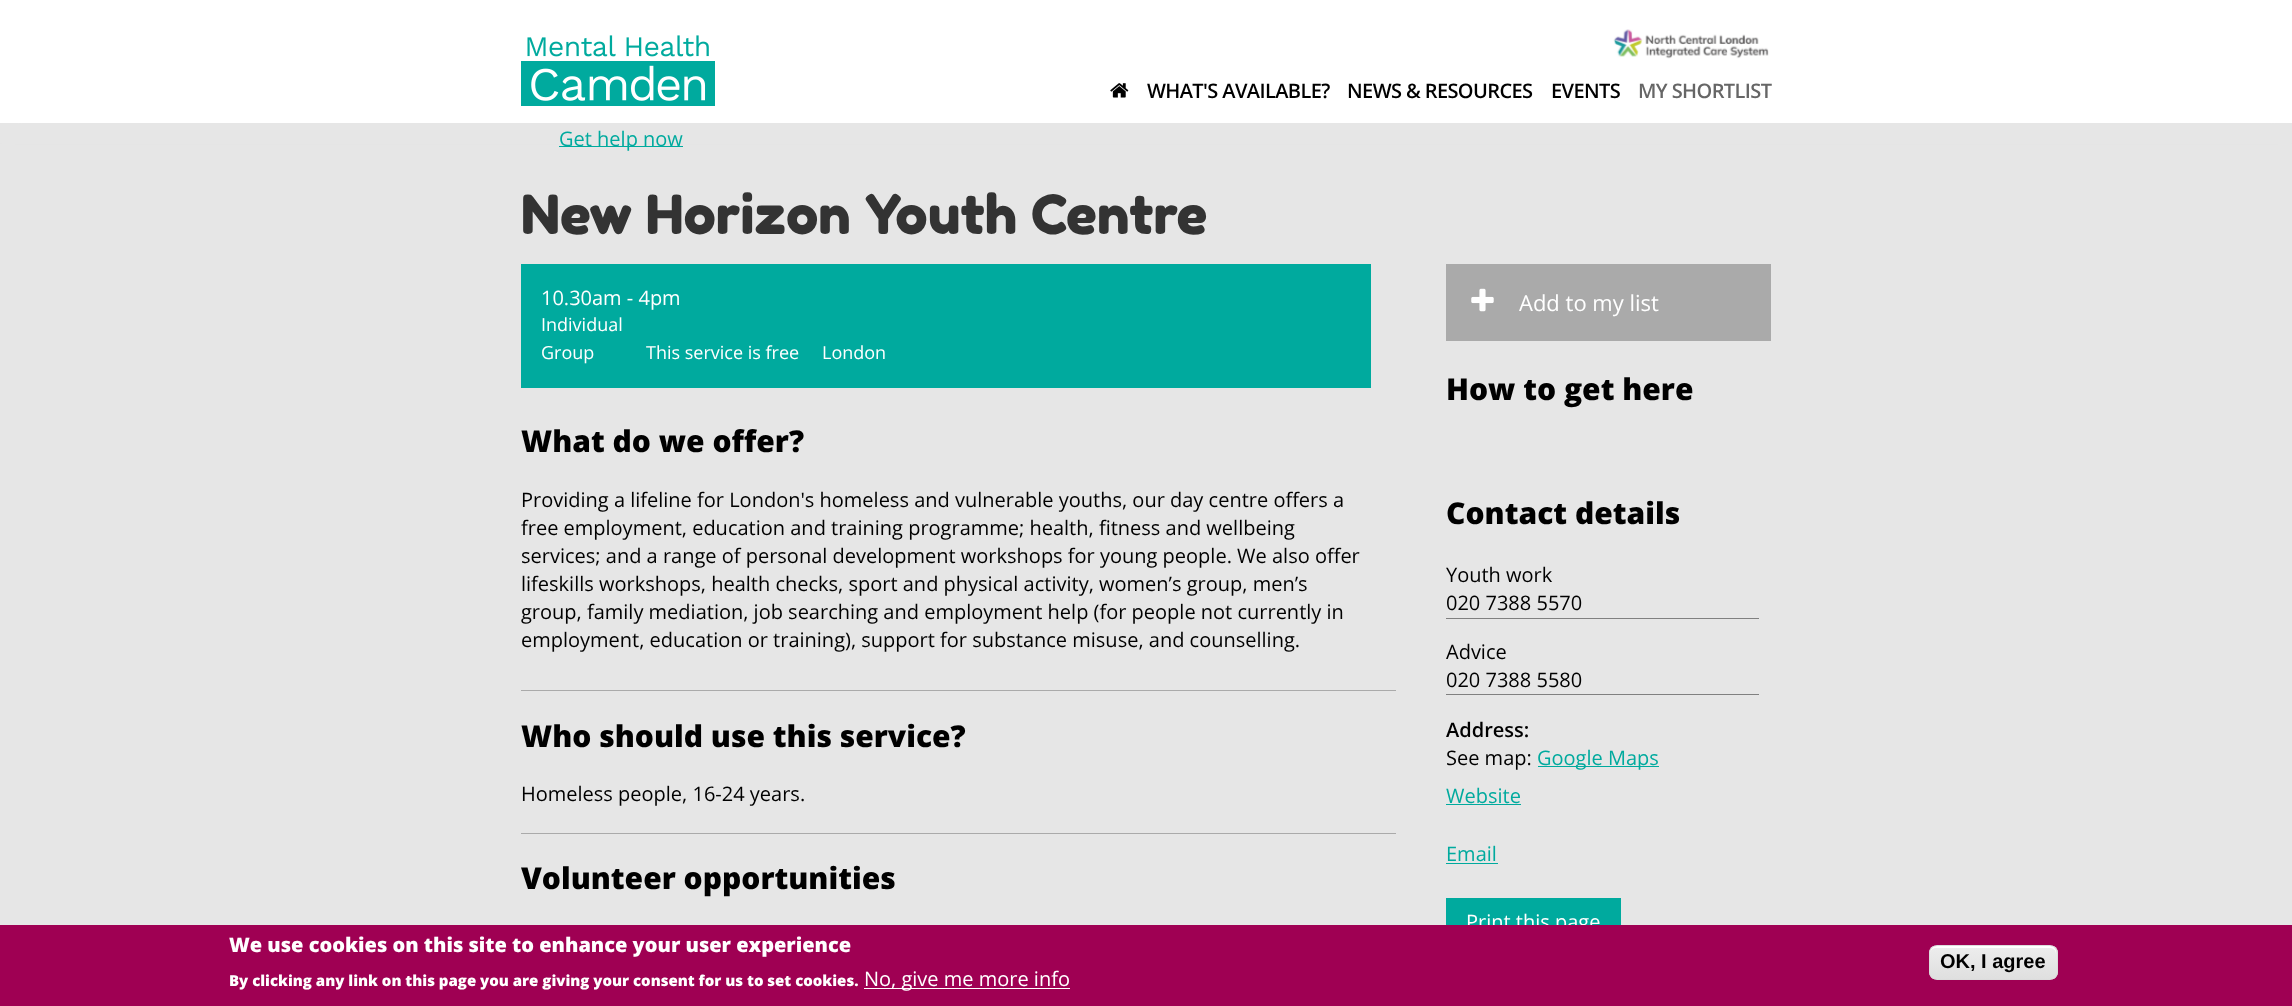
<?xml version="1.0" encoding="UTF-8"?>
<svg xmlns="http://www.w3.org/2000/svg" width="2292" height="1006">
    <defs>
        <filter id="blur1" x="-50%" y="-200%" width="200%" height="500%"><feGaussianBlur stdDeviation="9"/></filter>
        <clipPath id="clip1"><rect x="1929" y="945" width="129" height="35" rx="8"/></clipPath>
        <linearGradient id="g1" gradientUnits="userSpaceOnUse" x1="1993" y1="946" x2="1993" y2="979"><stop offset="0.05" stop-color="#EDEDED"/><stop offset="1" stop-color="#DFDFDF"/></linearGradient>
    </defs>
    <rect width="100%" height="100%" fill="#E6E6E6"/>
    <rect x="559" y="146" width="124" height="1" fill="#00AA9E"/>
    <rect x="0" y="0" width="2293" height="123" fill="#E6E6E6" filter="url(#blur1)"/>
    <rect x="0" y="0" width="2292" height="123" fill="#FFFFFF"/>
    <image x="521" y="35" width="194" height="71" href="img_01.png"/>
    <image x="1613" y="29" width="156" height="30" href="img_02.png"/>
    <image x="1110" y="83" width="19" height="15" href="img_03.png"/>
    <text x="1147" y="98" font-family="Open Sans" font-size="20" font-weight="600" letter-spacing="-0.6" fill="#000000">WHAT'S AVAILABLE?</text>
    <text x="1347" y="98" font-family="Open Sans" font-size="20" font-weight="600" letter-spacing="-0.6" fill="#000000">NEWS &amp; RESOURCES</text>
    <text x="1551" y="98" font-family="Open Sans" font-size="20" font-weight="600" letter-spacing="-0.6" fill="#000000">EVENTS</text>
    <text x="1638" y="98" font-family="Open Sans" font-size="20" font-weight="600" letter-spacing="-0.6" fill="#666666">MY SHORTLIST</text>
    <text x="559" y="146" font-family="Open Sans" font-size="20" fill="#00AA9E">Get help now</text>
    <text x="521" y="234" font-family="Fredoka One" font-size="54" fill="#333333">New Horizon Youth Centre</text>
    <rect x="521" y="264" width="850" height="124" fill="#00AA9E"/>
    <text x="541" y="305" font-family="Open Sans" font-size="20" fill="#FFFFFF">10.30am - 4pm</text>
    <text font-family="Open Sans" font-size="18" fill="#FFFFFF">
        <tspan x="541" y="331">Individual</tspan>
        <tspan x="541" y="359">Group</tspan>
    </text>
    <text x="646" y="359" font-family="Open Sans" font-size="18" fill="#FFFFFF">This service is free</text>
    <text x="822" y="359" font-family="Open Sans" font-size="18" fill="#FFFFFF">London</text>
    <rect x="521" y="690" width="875" height="1" fill="#AAAAAA"/>
    <text x="521" y="452" font-family="Open Sans" font-size="30" font-weight="800" fill="#000000">What do we offer?</text>
    <text font-family="Open Sans" font-size="20" fill="#000000">
        <tspan x="521" y="507">Providing a lifeline for London's homeless and vulnerable youths, our day centre offers a</tspan>
        <tspan x="521" y="535">free employment, education and training programme; health, fitness and wellbeing</tspan>
        <tspan x="521" y="563">services; and a range of personal development workshops for young people. We also offer</tspan>
        <tspan x="521" y="591">lifeskills workshops, health checks, sport and physical activity, women’s group, men’s</tspan>
        <tspan x="521" y="619">group, family mediation, job searching and employment help (for people not currently in</tspan>
        <tspan x="521" y="647">employment, education or training), support for substance misuse, and counselling.</tspan>
    </text>
    <rect x="521" y="833" width="875" height="1" fill="#AAAAAA"/>
    <text x="521" y="747" font-family="Open Sans" font-size="30" font-weight="800" fill="#000000">Who should use this service?</text>
    <text x="521" y="801" font-family="Open Sans" font-size="20" fill="#000000">Homeless people, 16-24 years.</text>
    <text x="521" y="889" font-family="Open Sans" font-size="30" font-weight="800" fill="#000000">Volunteer opportunities</text>
    <rect x="1446" y="264" width="325" height="77" fill="#AAAAAA"/>
    <image x="1471" y="288" width="23" height="24" href="img_04.png"/>
    <text x="1519" y="311" font-family="Open Sans" font-size="22" fill="#FFFFFF">Add to my list</text>
    <text x="1446" y="400" font-family="Open Sans" font-size="30" font-weight="800" fill="#000000">How to get here</text>
    <text x="1446" y="524" font-family="Open Sans" font-size="30" font-weight="800" fill="#000000">Contact details</text>
    <rect x="1446" y="618" width="313" height="1" fill="#808080"/>
    <text font-family="Open Sans" font-size="20" fill="#000000">
        <tspan x="1446" y="582">Youth work</tspan>
        <tspan x="1446" y="610">020 7388 5570</tspan>
    </text>
    <rect x="1446" y="694" width="313" height="1" fill="#808080"/>
    <text font-family="Open Sans" font-size="20" fill="#000000">
        <tspan x="1446" y="659">Advice</tspan>
        <tspan x="1446" y="687">020 7388 5580</tspan>
    </text>
    <text x="1446" y="737" font-family="Open Sans" font-size="20" font-weight="600" fill="#000000">Address:</text>
    <text x="1446" y="765" font-family="Open Sans" font-size="20" fill="#000000">See map:</text>
    <rect x="1538" y="766" width="121" height="1" fill="#00AA9E"/>
    <text x="1537" y="765" font-family="Open Sans" font-size="20" fill="#00AA9E">Google Maps</text>
    <text x="1446" y="803" font-family="Open Sans" font-size="20" fill="#00AA9E">Website</text>
    <rect x="1446" y="804" width="75" height="1" fill="#00AA9E"/>
    <text x="1446" y="861" font-family="Open Sans" font-size="20" fill="#00AA9E">Email</text>
    <rect x="1446" y="863" width="52" height="1" fill="#00AA9E"/>
    <rect x="1446" y="898" width="175" height="27" fill="#00AA9E"/>
    <text x="1466" y="929" font-family="Open Sans" font-size="20" fill="#FFFFFF">Print this page</text>
    <rect x="0" y="925" width="2292" height="81" fill="#9F0053"/>
    <text x="229" y="952" font-family="Open Sans" font-size="20" font-weight="800" fill="#FFFFFF">We use cookies on this site to enhance your user experience</text>
    <text x="229" y="986" font-family="Open Sans" font-size="15" font-weight="800" fill="#FFFFFF">By clicking any link on this page you are giving your consent for us to set cookies.</text>
    <rect x="864" y="988" width="206" height="1" fill="#FFFFFF"/>
    <text x="864" y="986" font-family="Open Sans" font-size="20" fill="#FFFFFF">No, give me more info</text>
    <g clip-path="url(#clip1)">
        <rect x="1929" y="946" width="129" height="33" fill="url(#g1)"/>
    </g>
    <path d="M 1936 948 H 2050 C 2053 948 2056 950 2056 954 V 952 C 2056 949 2053 946 2050 946 H 1936 C 1933 946 1930 949 1930 952 V 954 C 1930 950 1933 948 1936 948 Z" fill="#FFFFFF"/>
    <rect x="1929.5" y="945.5" width="128" height="34" rx="7.5" fill="none" stroke="#DCDCDC"/>
    <text x="1940" y="968" font-family="Liberation Sans" font-size="20" font-weight="700" fill="#000000">OK, I agree</text>
</svg>
